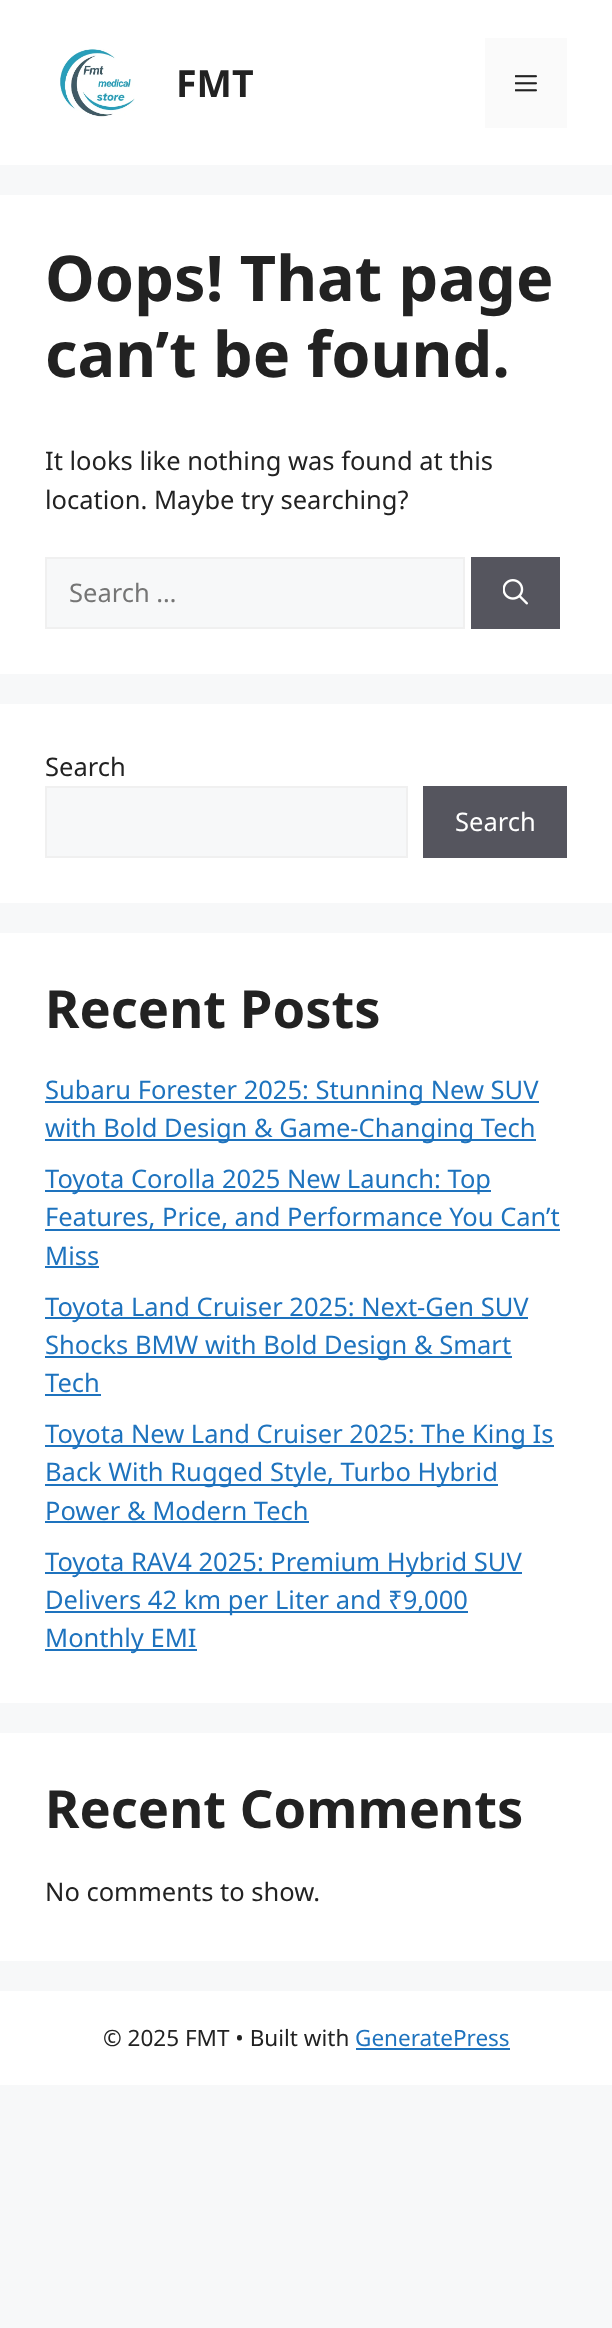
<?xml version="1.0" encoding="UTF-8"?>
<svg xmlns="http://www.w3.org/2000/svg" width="612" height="2328">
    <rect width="100%" height="100%" fill="#F7F8F9"/>
    <rect x="0" y="0" width="612" height="165" fill="#FFFFFF"/>
    <image x="60" y="49" width="75" height="68" href="img_01.png"/>
    <text x="176" y="97" font-family="Noto Sans" font-size="37.5" font-weight="700" fill="#222222">FMT</text>
    <rect x="485" y="38" width="82" height="90" fill="#FAFAFA"/>
    <image x="515" y="75" width="22" height="17" href="img_02.png"/>
    <rect x="0" y="195" width="612" height="479" fill="#FFFFFF"/>
    <text font-family="Noto Sans" font-size="63" font-weight="700" fill="#222222">
        <tspan x="45" y="301">Oops! That page</tspan>
        <tspan x="45" y="377">can’t be found.</tspan>
    </text>
    <text font-family="Noto Sans" font-size="25.5" fill="#222222">
        <tspan x="45" y="470">It looks like nothing was found at this</tspan>
        <tspan x="45" y="509">location. Maybe try searching?</tspan>
    </text>
    <rect x="46" y="558" width="418" height="70" fill="#F7F8F9" stroke="#F0F0F0" stroke-width="2"/>
    <text x="69" y="602" font-family="Noto Sans" font-size="25.5" fill="#757575">Search …</text>
    <rect x="471" y="557" width="89" height="72" fill="#55555E"/>
    <image x="503" y="579" width="25" height="26" href="img_03.png"/>
    <rect x="0" y="704" width="612" height="199" fill="#FFFFFF"/>
    <text x="45" y="776" font-family="Noto Sans" font-size="25.5" fill="#222222">Search</text>
    <rect x="46" y="787" width="361" height="70" fill="#F7F8F9" stroke="#F0F0F0" stroke-width="2"/>
    <rect x="423" y="786" width="144" height="72" fill="#55555E"/>
    <text x="455" y="831" font-family="Noto Sans" font-size="25.5" fill="#FFFFFF">Search</text>
    <rect x="0" y="933" width="612" height="770" fill="#FFFFFF"/>
    <text x="45" y="1028" font-family="Noto Sans" font-size="52.5" font-weight="700" fill="#222222">Recent Posts</text>
    <rect x="45" y="1101" width="494" height="2" fill="#1E73BE"/>
    <text x="45" y="1099" font-family="Noto Sans" font-size="25.5" fill="#1E73BE">Subaru Forester 2025: Stunning New SUV</text>
    <rect x="45" y="1139" width="491" height="2" fill="#1E73BE"/>
    <text x="45" y="1137" font-family="Noto Sans" font-size="25.5" fill="#1E73BE">with Bold Design &amp; Game-Changing Tech</text>
    <rect x="45" y="1190" width="446" height="2" fill="#1E73BE"/>
    <text x="45" y="1188" font-family="Noto Sans" font-size="25.5" fill="#1E73BE">Toyota Corolla 2025 New Launch: Top</text>
    <rect x="45" y="1229" width="515" height="2" fill="#1E73BE"/>
    <text font-family="Noto Sans" font-size="25.5" fill="#1E73BE">
        <tspan x="45" y="1226">Features, Price, and Performance You Can’t</tspan>
        <tspan x="45" y="1265">Miss</tspan>
    </text>
    <rect x="45" y="1266" width="54" height="2" fill="#1E73BE"/>
    <rect x="45" y="1317" width="483" height="2" fill="#1E73BE"/>
    <text x="45" y="1316" font-family="Noto Sans" font-size="25.5" fill="#1E73BE">Toyota Land Cruiser 2025: Next-Gen SUV</text>
    <rect x="45" y="1356" width="467" height="2" fill="#1E73BE"/>
    <text font-family="Noto Sans" font-size="25.5" fill="#1E73BE">
        <tspan x="45" y="1354">Shocks BMW with Bold Design &amp; Smart</tspan>
        <tspan x="45" y="1392">Tech</tspan>
    </text>
    <rect x="45" y="1394" width="56" height="2" fill="#1E73BE"/>
    <rect x="45" y="1445" width="509" height="2" fill="#1E73BE"/>
    <text x="45" y="1443" font-family="Noto Sans" font-size="25.5" fill="#1E73BE">Toyota New Land Cruiser 2025: The King Is</text>
    <rect x="45" y="1484" width="453" height="2" fill="#1E73BE"/>
    <text font-family="Noto Sans" font-size="25.5" fill="#1E73BE">
        <tspan x="45" y="1481">Back With Rugged Style, Turbo Hybrid</tspan>
        <tspan x="45" y="1520">Power &amp; Modern Tech</tspan>
    </text>
    <rect x="45" y="1521" width="264" height="2" fill="#1E73BE"/>
    <rect x="45" y="1572" width="477" height="2" fill="#1E73BE"/>
    <text x="45" y="1571" font-family="Noto Sans" font-size="25.5" fill="#1E73BE">Toyota RAV4 2025: Premium Hybrid SUV</text>
    <rect x="45" y="1611" width="423" height="2" fill="#1E73BE"/>
    <text x="45" y="1609" font-family="Noto Sans" font-size="25.5" fill="#1E73BE">Delivers 42 km per Liter and ₹9,000</text>
    <rect x="45" y="1649" width="152" height="2" fill="#1E73BE"/>
    <text x="45" y="1647" font-family="Noto Sans" font-size="25.5" fill="#1E73BE">Monthly EMI</text>
    <rect x="0" y="1733" width="612" height="228" fill="#FFFFFF"/>
    <text x="45" y="1828" font-family="Noto Sans" font-size="52.5" font-weight="700" fill="#222222">Recent Comments</text>
    <text x="45" y="1901" font-family="Noto Sans" font-size="25.5" fill="#222222">No comments to show.</text>
    <rect x="0" y="1991" width="612" height="94" fill="#FFFFFF"/>
    <text x="103" y="2046" font-family="Noto Sans" font-size="22.5" fill="#222222">© 2025 FMT • Built with</text>
    <text x="355" y="2046" font-family="Noto Sans" font-size="22.5" fill="#1E73BE">GeneratePress</text>
    <rect x="356" y="2048" width="154" height="2" fill="#1E73BE"/>
</svg>
